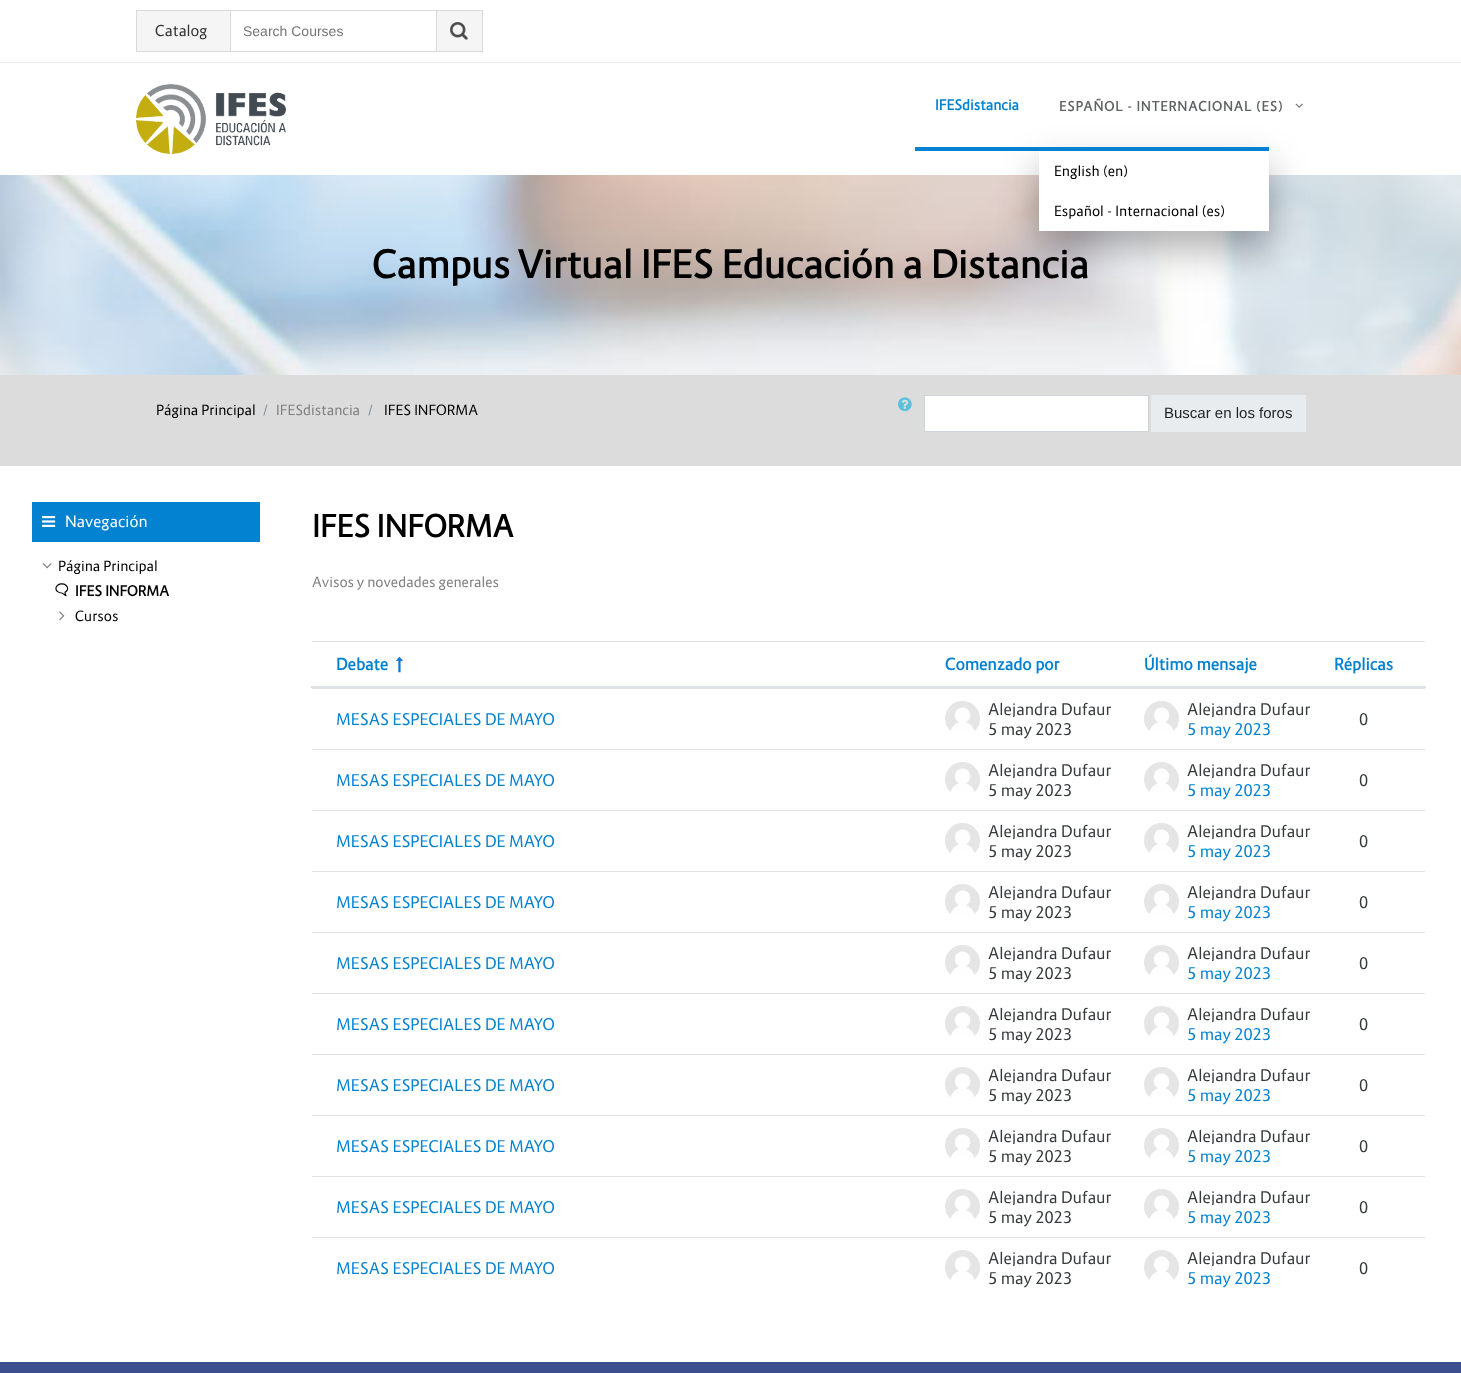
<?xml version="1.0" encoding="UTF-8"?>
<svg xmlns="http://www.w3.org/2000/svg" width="1461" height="1373">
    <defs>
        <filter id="blur1" x="-50%" y="-200%" width="200%" height="500%"><feGaussianBlur stdDeviation="19"/></filter>
        <clipPath id="clip1"><rect x="988" y="701" width="124" height="16"/></clipPath>
        <clipPath id="clip2"><rect x="1187" y="701" width="123" height="16"/></clipPath>
        <clipPath id="clip3"><rect x="988" y="762" width="124" height="16"/></clipPath>
        <clipPath id="clip4"><rect x="1187" y="762" width="123" height="16"/></clipPath>
        <clipPath id="clip5"><rect x="988" y="823" width="124" height="16"/></clipPath>
        <clipPath id="clip6"><rect x="1187" y="823" width="123" height="16"/></clipPath>
        <clipPath id="clip7"><rect x="988" y="884" width="124" height="16"/></clipPath>
        <clipPath id="clip8"><rect x="1187" y="884" width="123" height="16"/></clipPath>
        <clipPath id="clip9"><rect x="988" y="945" width="124" height="16"/></clipPath>
        <clipPath id="clip10"><rect x="1187" y="945" width="123" height="16"/></clipPath>
        <clipPath id="clip11"><rect x="988" y="1006" width="124" height="16"/></clipPath>
        <clipPath id="clip12"><rect x="1187" y="1006" width="123" height="16"/></clipPath>
        <clipPath id="clip13"><rect x="988" y="1067" width="124" height="16"/></clipPath>
        <clipPath id="clip14"><rect x="1187" y="1067" width="123" height="16"/></clipPath>
        <clipPath id="clip15"><rect x="988" y="1128" width="124" height="16"/></clipPath>
        <clipPath id="clip16"><rect x="1187" y="1128" width="123" height="16"/></clipPath>
        <clipPath id="clip17"><rect x="988" y="1189" width="124" height="16"/></clipPath>
        <clipPath id="clip18"><rect x="1187" y="1189" width="123" height="16"/></clipPath>
        <clipPath id="clip19"><rect x="988" y="1250" width="124" height="16"/></clipPath>
        <clipPath id="clip20"><rect x="1187" y="1250" width="123" height="16"/></clipPath>
    </defs>
    <rect width="100%" height="100%" fill="#FFFFFF"/>
    <rect x="0" y="62" width="1461" height="1" fill="#EBEBEB"/>
    <rect x="136.5" y="10.5" width="346" height="41" fill="#F5F5F5" stroke="#D9D9D9"/>
    <text x="155" y="36" font-family="'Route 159'" font-size="15" fill="#333333">Catalog</text>
    <rect x="231" y="11" width="205" height="40" fill="#FFFFFF"/>
    <rect x="436" y="11" width="1" height="40" fill="#D9D9D9"/>
    <rect x="230" y="11" width="1" height="40" fill="#D9D9D9"/>
    <text x="243" y="36" font-family="Liberation Sans" font-size="14" fill="#757575">Search Courses</text>
    <image x="450" y="22" width="18" height="18" href="img_01.png"/>
    <image x="136" y="84" width="150" height="70" href="img_02.png"/>
    <rect x="915" y="147" width="124" height="4" fill="#0482D2"/>
    <text x="935" y="110" font-family="'Route 159'" font-size="14" font-weight="700" fill="#0482D2">IFESdistancia</text>
    <text x="1059" y="111" word-spacing="-0.5" font-family="'Route 159'" font-size="13" font-weight="700" letter-spacing="1" fill="#606264">ESPAÑOL - INTERNACIONAL (ES)</text>
    <image x="1295" y="103" width="8" height="5" href="img_03.png"/>
    <image x="0" y="175" width="1461" height="200" href="img_04.png"/>
    <rect x="1039" y="166" width="230" height="84" fill="#000000" fill-opacity="0.3" filter="url(#blur1)"/>
    <rect x="1039" y="151" width="230" height="80" fill="#FFFFFF"/>
    <rect x="1039" y="147" width="230" height="4" fill="#0482D2"/>
    <text x="1054" y="176" font-family="'Route 159'" font-size="14" fill="#000000">English (en)</text>
    <text x="1054" y="216" font-family="'Route 159'" font-size="14" fill="#000000">Español - Internacional (es)</text>
    <text x="372" y="278" font-family="'Route 159'" font-size="37.5" font-weight="700" fill="#000000">Campus Virtual IFES Educación a Distancia</text>
    <rect x="0" y="375" width="1461" height="91" fill="#DCDCDC"/>
    <text x="156" y="415" font-family="'Route 159'" font-size="14" fill="#000000">Página Principal</text>
    <text x="263" y="415" font-family="'Route 159'" font-size="14" fill="#868E96">/</text>
    <text x="276" y="415" font-family="'Route 159'" font-size="14" fill="#808080">IFESdistancia</text>
    <text x="368" y="415" font-family="'Route 159'" font-size="14" fill="#868E96">/</text>
    <text x="384" y="415" font-family="'Route 159'" font-size="14" fill="#000000">IFES INFORMA</text>
    <image x="898" y="397" width="14" height="15" href="img_05.png"/>
    <rect x="924.5" y="395.5" width="224" height="36" fill="#FFFFFF" stroke="#CED4DA"/>
    <rect x="1151" y="395" width="155" height="37" fill="#E9ECEF"/>
    <text x="1164" y="418" font-family="Liberation Sans" font-size="15" fill="#212529">Buscar en los foros</text>
    <rect x="32" y="502" width="228" height="40" fill="#0482D2"/>
    <image x="42" y="516" width="14" height="11" href="img_06.png"/>
    <text x="65" y="527" font-family="'Route 159'" font-size="15.5" fill="#FFFFFF">Navegación</text>
    <image x="42" y="563" width="10" height="6" href="img_07.png"/>
    <text x="58" y="571" font-family="'Route 159'" font-size="14" fill="#000000">Página Principal</text>
    <image x="55" y="583" width="14" height="14" href="img_08.png"/>
    <text x="75" y="596" font-family="'Route 159'" font-size="14" font-weight="700" fill="#000000">IFES INFORMA</text>
    <image x="59" y="611" width="6" height="10" href="img_09.png"/>
    <text x="75" y="621" font-family="'Route 159'" font-size="14" fill="#000000">Cursos</text>
    <text x="312" y="537" font-family="'Route 159'" font-size="30" font-weight="700" fill="#000000">IFES INFORMA</text>
    <text x="312" y="587" font-family="'Route 159'" font-size="14" fill="#808080">Avisos y novedades generales</text>
    <rect x="312" y="641" width="1113" height="1" fill="#DEE2E6"/>
    <rect x="311" y="686" width="1115" height="2" fill="#DEE2E6"/>
    <text x="336" y="670" font-family="'Route 159'" font-size="16" font-weight="700" fill="#0482D2">Debate</text>
    <image x="396" y="656" width="7" height="17" href="img_10.png"/>
    <text x="945" y="670" font-family="'Route 159'" font-size="16" font-weight="700" fill="#0482D2">Comenzado por</text>
    <text x="1144" y="670" font-family="'Route 159'" font-size="16" font-weight="700" fill="#0482D2">Último mensaje</text>
    <text x="1334" y="670" font-family="'Route 159'" font-size="16" font-weight="700" fill="#0482D2">Réplicas</text>
    <rect x="312" y="688" width="1113" height="1" fill="#DEE2E6"/>
    <text x="336" y="725" font-family="'Route 159'" font-size="16" fill="#0482D2">MESAS ESPECIALES DE MAYO</text>
    <image x="945" y="701" width="35" height="30" href="img_11.png"/>
    <g clip-path="url(#clip1)">
        <text x="988" y="715" font-family="'Route 159'" font-size="16" fill="#373A3C">Alejandra Dufaur</text>
    </g>
    <text x="988" y="735" font-family="'Route 159'" font-size="16" fill="#373A3C">5 may 2023</text>
    <image x="1144" y="701" width="35" height="30" href="img_12.png"/>
    <g clip-path="url(#clip2)">
        <text x="1187" y="715" font-family="'Route 159'" font-size="16" fill="#373A3C">Alejandra Dufaur</text>
    </g>
    <text x="1187" y="735" font-family="'Route 159'" font-size="16" fill="#0482D2">5 may 2023</text>
    <text x="1359" y="725" font-family="'Route 159'" font-size="16" fill="#373A3C">0</text>
    <rect x="312" y="749" width="1113" height="1" fill="#DEE2E6"/>
    <text x="336" y="786" font-family="'Route 159'" font-size="16" fill="#0482D2">MESAS ESPECIALES DE MAYO</text>
    <image x="945" y="762" width="35" height="30" href="img_11.png"/>
    <g clip-path="url(#clip3)">
        <text x="988" y="776" font-family="'Route 159'" font-size="16" fill="#373A3C">Alejandra Dufaur</text>
    </g>
    <text x="988" y="796" font-family="'Route 159'" font-size="16" fill="#373A3C">5 may 2023</text>
    <image x="1144" y="762" width="35" height="30" href="img_12.png"/>
    <g clip-path="url(#clip4)">
        <text x="1187" y="776" font-family="'Route 159'" font-size="16" fill="#373A3C">Alejandra Dufaur</text>
    </g>
    <text x="1187" y="796" font-family="'Route 159'" font-size="16" fill="#0482D2">5 may 2023</text>
    <text x="1359" y="786" font-family="'Route 159'" font-size="16" fill="#373A3C">0</text>
    <rect x="312" y="810" width="1113" height="1" fill="#DEE2E6"/>
    <text x="336" y="847" font-family="'Route 159'" font-size="16" fill="#0482D2">MESAS ESPECIALES DE MAYO</text>
    <image x="945" y="823" width="35" height="30" href="img_11.png"/>
    <g clip-path="url(#clip5)">
        <text x="988" y="837" font-family="'Route 159'" font-size="16" fill="#373A3C">Alejandra Dufaur</text>
    </g>
    <text x="988" y="857" font-family="'Route 159'" font-size="16" fill="#373A3C">5 may 2023</text>
    <image x="1144" y="823" width="35" height="30" href="img_12.png"/>
    <g clip-path="url(#clip6)">
        <text x="1187" y="837" font-family="'Route 159'" font-size="16" fill="#373A3C">Alejandra Dufaur</text>
    </g>
    <text x="1187" y="857" font-family="'Route 159'" font-size="16" fill="#0482D2">5 may 2023</text>
    <text x="1359" y="847" font-family="'Route 159'" font-size="16" fill="#373A3C">0</text>
    <rect x="312" y="871" width="1113" height="1" fill="#DEE2E6"/>
    <text x="336" y="908" font-family="'Route 159'" font-size="16" fill="#0482D2">MESAS ESPECIALES DE MAYO</text>
    <image x="945" y="884" width="35" height="30" href="img_11.png"/>
    <g clip-path="url(#clip7)">
        <text x="988" y="898" font-family="'Route 159'" font-size="16" fill="#373A3C">Alejandra Dufaur</text>
    </g>
    <text x="988" y="918" font-family="'Route 159'" font-size="16" fill="#373A3C">5 may 2023</text>
    <image x="1144" y="884" width="35" height="30" href="img_12.png"/>
    <g clip-path="url(#clip8)">
        <text x="1187" y="898" font-family="'Route 159'" font-size="16" fill="#373A3C">Alejandra Dufaur</text>
    </g>
    <text x="1187" y="918" font-family="'Route 159'" font-size="16" fill="#0482D2">5 may 2023</text>
    <text x="1359" y="908" font-family="'Route 159'" font-size="16" fill="#373A3C">0</text>
    <rect x="312" y="932" width="1113" height="1" fill="#DEE2E6"/>
    <text x="336" y="969" font-family="'Route 159'" font-size="16" fill="#0482D2">MESAS ESPECIALES DE MAYO</text>
    <image x="945" y="945" width="35" height="30" href="img_11.png"/>
    <g clip-path="url(#clip9)">
        <text x="988" y="959" font-family="'Route 159'" font-size="16" fill="#373A3C">Alejandra Dufaur</text>
    </g>
    <text x="988" y="979" font-family="'Route 159'" font-size="16" fill="#373A3C">5 may 2023</text>
    <image x="1144" y="945" width="35" height="30" href="img_12.png"/>
    <g clip-path="url(#clip10)">
        <text x="1187" y="959" font-family="'Route 159'" font-size="16" fill="#373A3C">Alejandra Dufaur</text>
    </g>
    <text x="1187" y="979" font-family="'Route 159'" font-size="16" fill="#0482D2">5 may 2023</text>
    <text x="1359" y="969" font-family="'Route 159'" font-size="16" fill="#373A3C">0</text>
    <rect x="312" y="993" width="1113" height="1" fill="#DEE2E6"/>
    <text x="336" y="1030" font-family="'Route 159'" font-size="16" fill="#0482D2">MESAS ESPECIALES DE MAYO</text>
    <image x="945" y="1006" width="35" height="30" href="img_11.png"/>
    <g clip-path="url(#clip11)">
        <text x="988" y="1020" font-family="'Route 159'" font-size="16" fill="#373A3C">Alejandra Dufaur</text>
    </g>
    <text x="988" y="1040" font-family="'Route 159'" font-size="16" fill="#373A3C">5 may 2023</text>
    <image x="1144" y="1006" width="35" height="30" href="img_12.png"/>
    <g clip-path="url(#clip12)">
        <text x="1187" y="1020" font-family="'Route 159'" font-size="16" fill="#373A3C">Alejandra Dufaur</text>
    </g>
    <text x="1187" y="1040" font-family="'Route 159'" font-size="16" fill="#0482D2">5 may 2023</text>
    <text x="1359" y="1030" font-family="'Route 159'" font-size="16" fill="#373A3C">0</text>
    <rect x="312" y="1054" width="1113" height="1" fill="#DEE2E6"/>
    <text x="336" y="1091" font-family="'Route 159'" font-size="16" fill="#0482D2">MESAS ESPECIALES DE MAYO</text>
    <image x="945" y="1067" width="35" height="30" href="img_11.png"/>
    <g clip-path="url(#clip13)">
        <text x="988" y="1081" font-family="'Route 159'" font-size="16" fill="#373A3C">Alejandra Dufaur</text>
    </g>
    <text x="988" y="1101" font-family="'Route 159'" font-size="16" fill="#373A3C">5 may 2023</text>
    <image x="1144" y="1067" width="35" height="30" href="img_12.png"/>
    <g clip-path="url(#clip14)">
        <text x="1187" y="1081" font-family="'Route 159'" font-size="16" fill="#373A3C">Alejandra Dufaur</text>
    </g>
    <text x="1187" y="1101" font-family="'Route 159'" font-size="16" fill="#0482D2">5 may 2023</text>
    <text x="1359" y="1091" font-family="'Route 159'" font-size="16" fill="#373A3C">0</text>
    <rect x="312" y="1115" width="1113" height="1" fill="#DEE2E6"/>
    <text x="336" y="1152" font-family="'Route 159'" font-size="16" fill="#0482D2">MESAS ESPECIALES DE MAYO</text>
    <image x="945" y="1128" width="35" height="30" href="img_11.png"/>
    <g clip-path="url(#clip15)">
        <text x="988" y="1142" font-family="'Route 159'" font-size="16" fill="#373A3C">Alejandra Dufaur</text>
    </g>
    <text x="988" y="1162" font-family="'Route 159'" font-size="16" fill="#373A3C">5 may 2023</text>
    <image x="1144" y="1128" width="35" height="30" href="img_12.png"/>
    <g clip-path="url(#clip16)">
        <text x="1187" y="1142" font-family="'Route 159'" font-size="16" fill="#373A3C">Alejandra Dufaur</text>
    </g>
    <text x="1187" y="1162" font-family="'Route 159'" font-size="16" fill="#0482D2">5 may 2023</text>
    <text x="1359" y="1152" font-family="'Route 159'" font-size="16" fill="#373A3C">0</text>
    <rect x="312" y="1176" width="1113" height="1" fill="#DEE2E6"/>
    <text x="336" y="1213" font-family="'Route 159'" font-size="16" fill="#0482D2">MESAS ESPECIALES DE MAYO</text>
    <image x="945" y="1189" width="35" height="30" href="img_11.png"/>
    <g clip-path="url(#clip17)">
        <text x="988" y="1203" font-family="'Route 159'" font-size="16" fill="#373A3C">Alejandra Dufaur</text>
    </g>
    <text x="988" y="1223" font-family="'Route 159'" font-size="16" fill="#373A3C">5 may 2023</text>
    <image x="1144" y="1189" width="35" height="30" href="img_12.png"/>
    <g clip-path="url(#clip18)">
        <text x="1187" y="1203" font-family="'Route 159'" font-size="16" fill="#373A3C">Alejandra Dufaur</text>
    </g>
    <text x="1187" y="1223" font-family="'Route 159'" font-size="16" fill="#0482D2">5 may 2023</text>
    <text x="1359" y="1213" font-family="'Route 159'" font-size="16" fill="#373A3C">0</text>
    <rect x="312" y="1237" width="1113" height="1" fill="#DEE2E6"/>
    <text x="336" y="1274" font-family="'Route 159'" font-size="16" fill="#0482D2">MESAS ESPECIALES DE MAYO</text>
    <image x="945" y="1250" width="35" height="30" href="img_11.png"/>
    <g clip-path="url(#clip19)">
        <text x="988" y="1264" font-family="'Route 159'" font-size="16" fill="#373A3C">Alejandra Dufaur</text>
    </g>
    <text x="988" y="1284" font-family="'Route 159'" font-size="16" fill="#373A3C">5 may 2023</text>
    <image x="1144" y="1250" width="35" height="30" href="img_12.png"/>
    <g clip-path="url(#clip20)">
        <text x="1187" y="1264" font-family="'Route 159'" font-size="16" fill="#373A3C">Alejandra Dufaur</text>
    </g>
    <text x="1187" y="1284" font-family="'Route 159'" font-size="16" fill="#0482D2">5 may 2023</text>
    <text x="1359" y="1274" font-family="'Route 159'" font-size="16" fill="#373A3C">0</text>
    <rect x="0" y="1362" width="1461" height="11" fill="#3C4E8E"/>
</svg>
